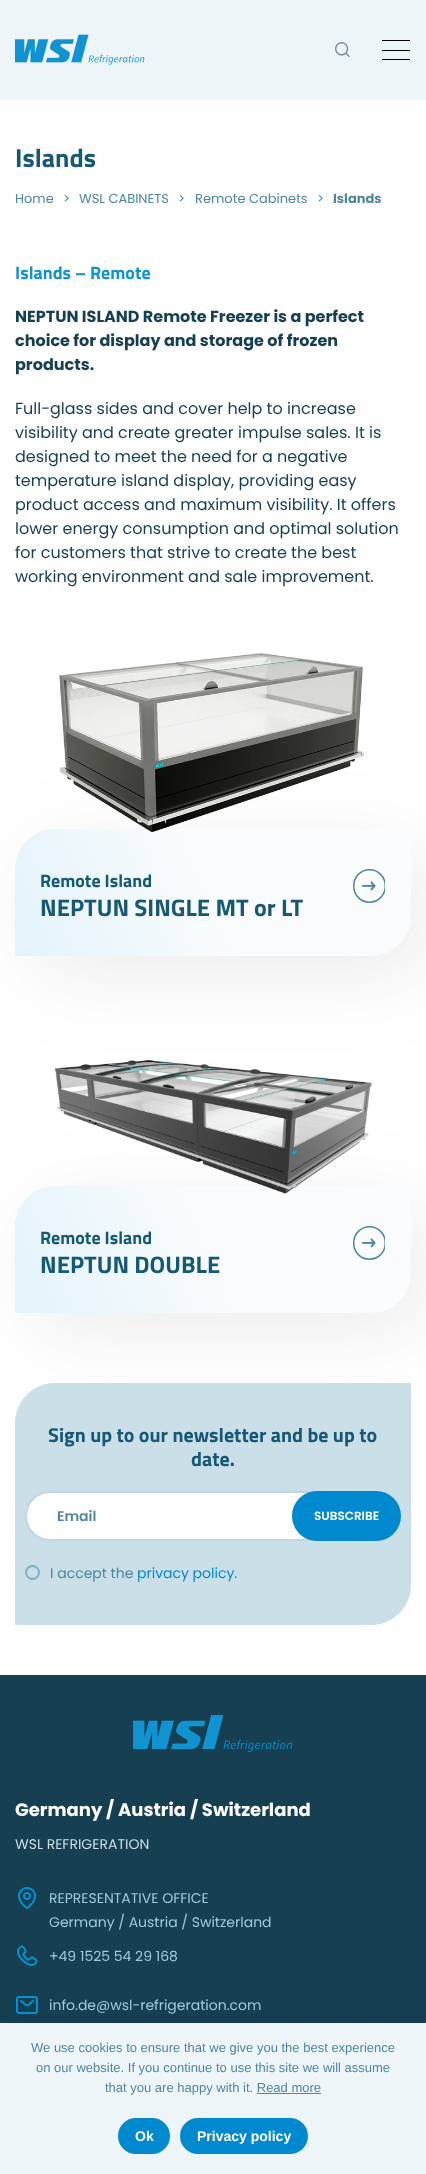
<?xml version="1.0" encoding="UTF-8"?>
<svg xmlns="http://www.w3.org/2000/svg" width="426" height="2174">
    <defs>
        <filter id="blur1" x="-50%" y="-200%" width="200%" height="500%"><feGaussianBlur stdDeviation="37"/></filter>
        <linearGradient id="g1" gradientUnits="userSpaceOnUse" x1="402" y1="809" x2="24" y2="976"><stop offset="0.5" stop-color="#FAFCFD"/><stop offset="0.93" stop-color="#E5F4FB"/></linearGradient>
        <clipPath id="clip1"><rect x="353" y="869" width="32" height="34"/></clipPath>
        <linearGradient id="g2" gradientUnits="userSpaceOnUse" x1="402" y1="1166" x2="24" y2="1333"><stop offset="0.5" stop-color="#FAFCFD"/><stop offset="0.93" stop-color="#E5F4FB"/></linearGradient>
        <clipPath id="clip2"><rect x="353" y="1226" width="32" height="34"/></clipPath>
        <filter id="blur2" x="-50%" y="-200%" width="200%" height="500%"><feGaussianBlur stdDeviation="12.5"/></filter>
    </defs>
    <rect width="100%" height="100%" fill="#FFFFFF"/>
    <rect x="0" y="0" width="426" height="100" fill="#EEF5F8"/>
    <image x="15" y="34" width="130" height="31" href="img_01.png"/>
    <image x="335" y="42" width="15" height="15" href="img_02.png"/>
    <rect x="382" y="40" width="28" height="1" fill="#000000"/>
    <rect x="382" y="50" width="28" height="1" fill="#000000"/>
    <rect x="382" y="59" width="28" height="1" fill="#000000"/>
    <text x="15" y="167" font-family="Titillium Web" font-size="26" font-weight="700" fill="#175875">Islands</text>
    <text x="15" y="203" font-family="Poppins" font-size="13" fill="#50869E">Home</text>
    <text x="63" y="203" font-family="Poppins" font-size="13" fill="#50869E">&gt;</text>
    <text x="79" y="203" font-family="Poppins" font-size="13" fill="#50869E">WSL CABINETS</text>
    <text x="178" y="203" font-family="Poppins" font-size="13" fill="#50869E">&gt;</text>
    <text x="195" y="203" font-family="Poppins" font-size="13" fill="#50869E">Remote Cabinets</text>
    <text x="317" y="203" font-family="Poppins" font-size="13" fill="#50869E">&gt;</text>
    <text x="333" y="203" font-family="Poppins" font-size="13" font-weight="700" fill="#50869E">Islands</text>
    <text x="15" y="279" font-family="Titillium Web" font-size="18" font-weight="700" fill="#1193D1">Islands – Remote</text>
    <text font-family="Poppins" font-size="16" font-weight="700" fill="#163F52">
        <tspan x="15" y="322">NEPTUN ISLAND Remote Freezer is a perfect</tspan>
        <tspan x="15" y="346">choice for display and storage of frozen</tspan>
        <tspan x="15" y="370">products.</tspan>
    </text>
    <text font-family="Poppins" font-size="16" fill="#163F52">
        <tspan x="15" y="414">Full-glass sides and cover help to increase</tspan>
        <tspan x="15" y="438">visibility and create greater impulse sales. It is</tspan>
        <tspan x="15" y="462">designed to meet the need for a negative</tspan>
        <tspan x="15" y="486">temperature island display, providing easy</tspan>
        <tspan x="15" y="510">product access and maximum visibility. It offers</tspan>
        <tspan x="15" y="534">lower energy consumption and optimal solution</tspan>
        <tspan x="15" y="558">for customers that strive to create the best</tspan>
        <tspan x="15" y="582">working environment and sale improvement.</tspan>
    </text>
    <rect x="31" y="848" width="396" height="127" rx="40" fill="#9C9C9C" fill-opacity="0.18" filter="url(#blur1)"/>
    <path d="M 55 829 H 411 V 916 C 411 938 393 956 371 956 H 15 V 869 C 15 847 33 829 55 829 Z" fill="url(#g1)"/>
    <image x="59" y="653" width="305" height="179" href="img_03.png"/>
    <text x="40" y="887" font-family="Titillium Web" font-size="18" font-weight="700" fill="#175875">Remote Island</text>
    <text x="40" y="916" font-family="Titillium Web" font-size="24" font-weight="700" fill="#175875">NEPTUN SINGLE MT or LT</text>
    <image x="362" y="881" width="14" height="10" href="img_04.png"/>
    <g clip-path="url(#clip1)">
        <rect x="353.75" y="869.75" width="31.5" height="32.5" rx="15.75" fill="none" stroke="#50869E" stroke-width="1.5"/>
    </g>
    <rect x="31" y="1205" width="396" height="127" rx="40" fill="#9C9C9C" fill-opacity="0.18" filter="url(#blur1)"/>
    <path d="M 55 1186 H 411 V 1273 C 411 1295 393 1313 371 1313 H 15 V 1226 C 15 1204 33 1186 55 1186 Z" fill="url(#g2)"/>
    <image x="55" y="1059" width="317" height="135" href="img_05.png"/>
    <text x="40" y="1244" font-family="Titillium Web" font-size="18" font-weight="700" fill="#175875">Remote Island</text>
    <text x="40" y="1273" font-family="Titillium Web" font-size="24" font-weight="700" fill="#175875">NEPTUN DOUBLE</text>
    <image x="362" y="1238" width="14" height="10" href="img_04.png"/>
    <g clip-path="url(#clip2)">
        <rect x="353.75" y="1226.75" width="31.5" height="32.5" rx="15.75" fill="none" stroke="#50869E" stroke-width="1.5"/>
    </g>
    <path d="M 55 1383 H 411 V 1585 C 411 1607 393 1625 371 1625 H 15 V 1423 C 15 1401 33 1383 55 1383 Z" fill="#CBDFE8"/>
    <text x="48" y="1442" font-family="Titillium Web" font-size="20" font-weight="700" fill="#175875">Sign up to our newsletter and be up to</text>
    <text x="191" y="1466" font-family="Titillium Web" font-size="20" font-weight="700" fill="#175875">date.</text>
    <rect x="26" y="1492" width="374" height="48" rx="24" fill="#FFFFFF" stroke="#BED7E2" stroke-width="2"/>
    <text x="57" y="1521" font-family="Poppins" font-size="14" font-weight="600" fill="#50869E">Email</text>
    <rect x="293" y="1492" width="107" height="48" rx="24" fill="#0089CF" stroke="#0089CF" stroke-width="2"/>
    <text x="314" y="1520" font-family="Poppins" font-size="12" font-weight="600" fill="#FFFFFF">SUBSCRIBE</text>
    <circle cx="32.5" cy="1572.5" r="6.5" fill="none" stroke="#7CAEC5" stroke-width="2"/>
    <text x="50" y="1578" font-family="Poppins" font-size="14" fill="#50869E">I accept the</text>
    <text x="137" y="1578" font-family="Poppins" font-size="14" fill="#0089CF">privacy policy.</text>
    <rect x="0" y="1675" width="426" height="348" fill="#163F52"/>
    <image x="133" y="1715" width="160" height="37" href="img_06.png"/>
    <text x="15" y="1816" font-family="Poppins" font-size="18" font-weight="700" fill="#FFFFFF">Germany / Austria / Switzerland</text>
    <text x="15" y="1849" font-family="Poppins" font-size="14" fill="#CBDFE8">WSL REFRIGERATION</text>
    <image x="18" y="1887" width="18" height="22" href="img_07.png"/>
    <text font-family="Poppins" font-size="14" fill="#9CCBDF">
        <tspan x="49" y="1903">REPRESENTATIVE OFFICE</tspan>
        <tspan x="49" y="1927">Germany / Austria / Switzerland</tspan>
    </text>
    <image x="17" y="1945" width="21" height="21" href="img_08.png"/>
    <text x="49" y="1961" font-family="Poppins" font-size="14" fill="#9CCBDF">+49 1525 54 29 168</text>
    <image x="16" y="1996" width="22" height="18" href="img_09.png"/>
    <text x="49" y="2010" font-family="Poppins" font-size="14" fill="#9CCBDF">info.de@wsl-refrigeration.com</text>
    <rect x="12" y="2032" width="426" height="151" fill="#000000" fill-opacity="0.15" filter="url(#blur2)"/>
    <rect x="0" y="2023" width="426" height="151" fill="#EEF5F8"/>
    <text x="31" y="2052" font-family="Liberation Sans" font-size="13" fill="#50869E">We use cookies to ensure that we give you the best experience</text>
    <text x="36" y="2072" font-family="Liberation Sans" font-size="13" fill="#50869E">on our website. If you continue to use this site we will assume</text>
    <text x="105" y="2092" font-family="Liberation Sans" font-size="13" fill="#50869E">that you are happy with it. Read more</text>
    <rect x="257" y="2093" width="64" height="1" fill="#50869E"/>
    <rect x="119" y="2119" width="50" height="34" rx="17" fill="#0089CF" stroke="#0089CF" stroke-width="2"/>
    <text x="135" y="2141" font-family="Liberation Sans" font-size="14" font-weight="700" fill="#FFFFFF">Ok</text>
    <rect x="181" y="2119" width="126" height="34" rx="17" fill="#0089CF" stroke="#0089CF" stroke-width="2"/>
    <text x="197" y="2141" font-family="Liberation Sans" font-size="14" font-weight="700" fill="#FFFFFF">Privacy policy</text>
</svg>
